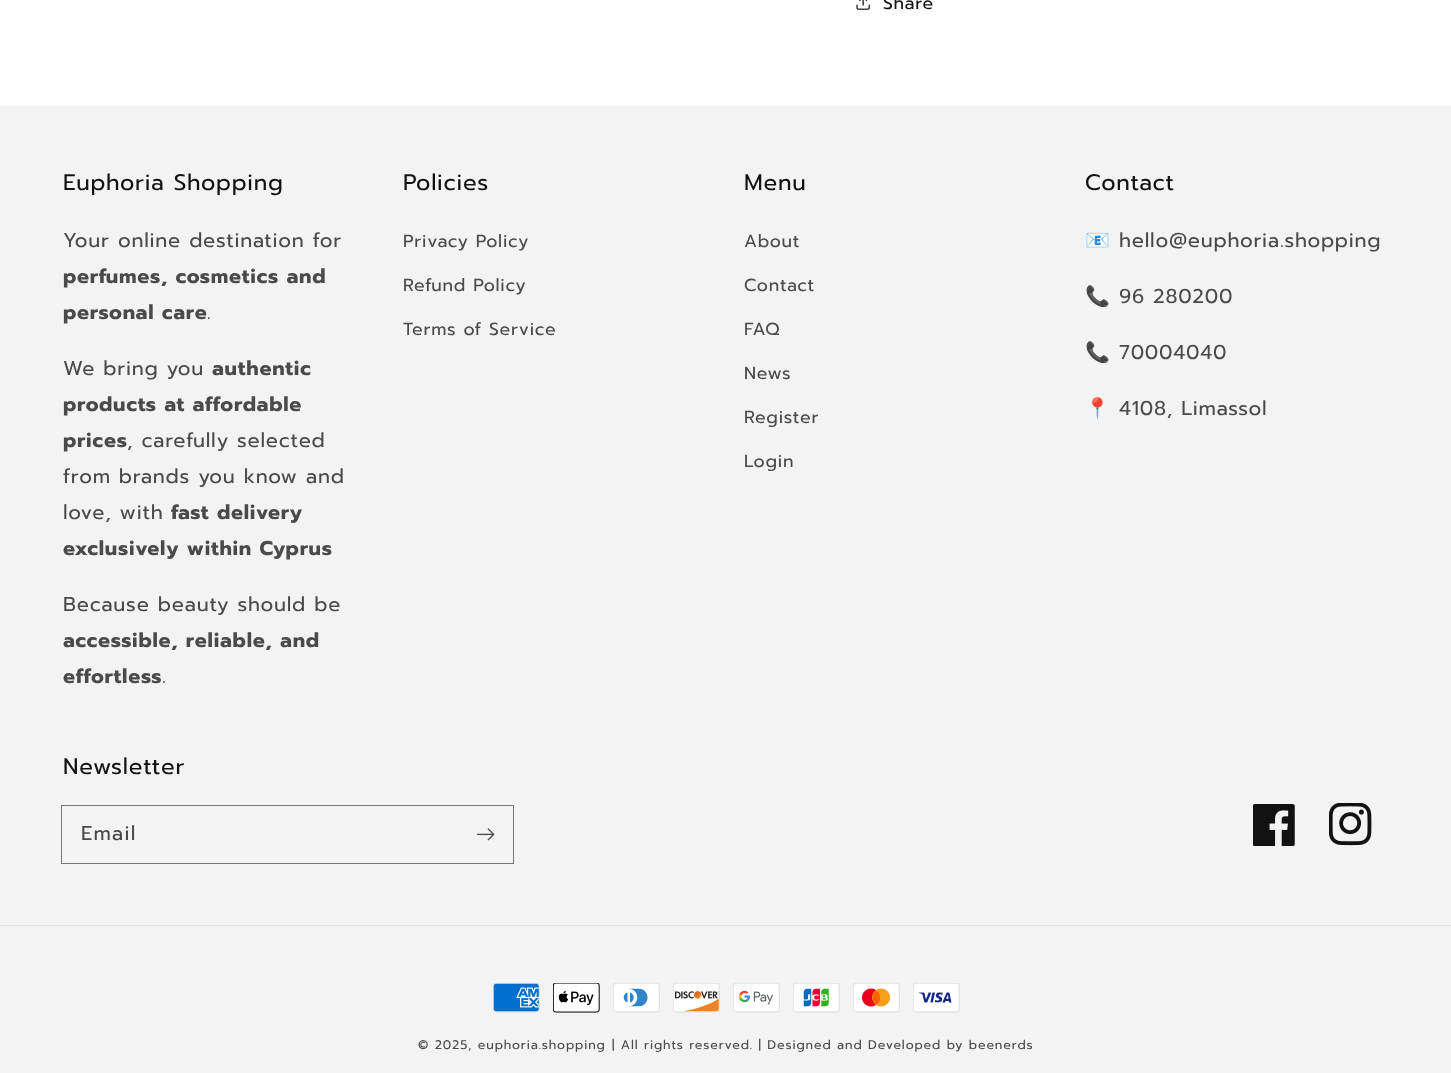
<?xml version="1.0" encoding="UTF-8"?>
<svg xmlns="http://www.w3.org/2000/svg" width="1451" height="1073">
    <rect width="100%" height="100%" fill="#FFFFFF"/>
    <image x="856" y="0" width="14" height="10" href="img_01.png"/>
    <text x="883" y="9" font-family="Prompt" font-size="17.5" letter-spacing="0.75" fill="#121212">Share</text>
    <rect x="0" y="106" width="1451" height="967" fill="#F3F3F3"/>
    <text x="63" y="190" font-family="Prompt" font-size="22.5" letter-spacing="0.75" fill="#121212">Euphoria Shopping</text>
    <text x="63" y="247" font-family="Prompt" font-size="20" letter-spacing="0.75" fill="#4A4A4A">Your online destination for</text>
    <text font-family="Prompt" font-size="20" font-weight="700" letter-spacing="0.75" fill="#4A4A4A">
        <tspan x="63" y="283">perfumes, cosmetics and</tspan>
        <tspan x="63" y="319">personal care</tspan>
    </text>
    <text x="207" y="319" font-family="Prompt" font-size="20" letter-spacing="0.75" fill="#4A4A4A">.</text>
    <text x="63" y="375" font-family="Prompt" font-size="20" letter-spacing="0.75" fill="#4A4A4A">We bring you</text>
    <text x="212" y="375" font-family="Prompt" font-size="20" font-weight="700" letter-spacing="0.75" fill="#4A4A4A">authentic</text>
    <text font-family="Prompt" font-size="20" font-weight="700" letter-spacing="0.75" fill="#4A4A4A">
        <tspan x="63" y="411">products at affordable</tspan>
        <tspan x="63" y="447">prices</tspan>
    </text>
    <text x="127" y="447" font-family="Prompt" font-size="20" letter-spacing="0.75" fill="#4A4A4A">, carefully selected</text>
    <text font-family="Prompt" font-size="20" letter-spacing="0.75" fill="#4A4A4A">
        <tspan x="63" y="483">from brands you know and</tspan>
        <tspan x="63" y="519">love, with</tspan>
    </text>
    <text x="171" y="519" font-family="Prompt" font-size="20" font-weight="700" letter-spacing="0.75" fill="#4A4A4A">fast delivery</text>
    <text x="63" y="555" font-family="Prompt" font-size="20" font-weight="700" letter-spacing="0.75" fill="#4A4A4A">exclusively within Cyprus</text>
    <text x="63" y="611" font-family="Prompt" font-size="20" letter-spacing="0.75" fill="#4A4A4A">Because beauty should be</text>
    <text font-family="Prompt" font-size="20" font-weight="700" letter-spacing="0.75" fill="#4A4A4A">
        <tspan x="63" y="647">accessible, reliable, and</tspan>
        <tspan x="63" y="683">effortless</tspan>
    </text>
    <text x="162" y="683" font-family="Prompt" font-size="20" letter-spacing="0.75" fill="#4A4A4A">.</text>
    <text x="403" y="190" font-family="Prompt" font-size="22.5" letter-spacing="0.75" fill="#121212">Policies</text>
    <text x="403" y="247" font-family="Prompt" font-size="17.5" letter-spacing="0.75" fill="#4A4A4A">Privacy Policy</text>
    <text x="403" y="291" font-family="Prompt" font-size="17.5" letter-spacing="0.75" fill="#4A4A4A">Refund Policy</text>
    <text x="403" y="335" font-family="Prompt" font-size="17.5" letter-spacing="0.75" fill="#4A4A4A">Terms of Service</text>
    <text x="744" y="190" font-family="Prompt" font-size="22.5" letter-spacing="0.75" fill="#121212">Menu</text>
    <text x="744" y="247" font-family="Prompt" font-size="17.5" letter-spacing="0.75" fill="#4A4A4A">About</text>
    <text x="744" y="291" font-family="Prompt" font-size="17.5" letter-spacing="0.75" fill="#4A4A4A">Contact</text>
    <text x="744" y="335" font-family="Prompt" font-size="17.5" letter-spacing="0.75" fill="#4A4A4A">FAQ</text>
    <text x="744" y="379" font-family="Prompt" font-size="17.5" letter-spacing="0.75" fill="#4A4A4A">News</text>
    <text x="744" y="423" font-family="Prompt" font-size="17.5" letter-spacing="0.75" fill="#4A4A4A">Register</text>
    <text x="744" y="467" font-family="Prompt" font-size="17.5" letter-spacing="0.75" fill="#4A4A4A">Login</text>
    <text x="1085" y="190" font-family="Prompt" font-size="22.5" letter-spacing="0.75" fill="#121212">Contact</text>
    <text x="1085" y="247" font-family="Noto Color Emoji" font-size="20" letter-spacing="0.75" fill="#4A4A4A">📧</text>
    <text x="1119" y="247" font-family="Prompt" font-size="20" letter-spacing="0.75" fill="#4A4A4A">hello@euphoria.shopping</text>
    <text x="1085" y="303" font-family="Noto Color Emoji" font-size="20" letter-spacing="0.75" fill="#4A4A4A">📞</text>
    <text x="1119" y="303" font-family="Prompt" font-size="20" letter-spacing="0.75" fill="#4A4A4A">96 280200</text>
    <text x="1085" y="359" font-family="Noto Color Emoji" font-size="20" letter-spacing="0.75" fill="#4A4A4A">📞</text>
    <text x="1119" y="359" font-family="Prompt" font-size="20" letter-spacing="0.75" fill="#4A4A4A">70004040</text>
    <text x="1085" y="415" font-family="Noto Color Emoji" font-size="20" letter-spacing="0.75" fill="#4A4A4A">📍</text>
    <text x="1119" y="415" font-family="Prompt" font-size="20" letter-spacing="0.75" fill="#4A4A4A">4108, Limassol</text>
    <text x="63" y="774" font-family="Prompt" font-size="22.5" letter-spacing="0.75" fill="#121212">Newsletter</text>
    <rect x="61.5" y="805.5" width="452" height="58" fill="none" stroke="#777777"/>
    <text x="81" y="840" font-family="Prompt" font-size="20" letter-spacing="1.25" fill="#4A4A4A">Email</text>
    <image x="477" y="828" width="18" height="13" href="img_02.png"/>
    <image x="1253" y="804" width="42" height="42" href="img_03.png"/>
    <image x="1329" y="803" width="43" height="43" href="img_04.png"/>
    <rect x="0" y="925" width="1451" height="1" fill="#E1E1E1"/>
    <image x="493" y="983" width="47" height="30" href="img_05.png"/>
    <image x="553" y="983" width="47" height="30" href="img_06.png"/>
    <image x="613" y="983" width="47" height="30" href="img_07.png"/>
    <image x="673" y="983" width="47" height="30" href="img_08.png"/>
    <image x="733" y="983" width="47" height="30" href="img_09.png"/>
    <image x="793" y="983" width="47" height="30" href="img_10.png"/>
    <image x="853" y="983" width="47" height="30" href="img_11.png"/>
    <image x="913" y="983" width="47" height="30" href="img_12.png"/>
    <text x="418" y="1049" font-family="Prompt" font-size="12.5" letter-spacing="0.88" fill="#4A4A4A">© 2025, euphoria.shopping</text>
    <text x="612" y="1049" font-family="Prompt" font-size="12.5" letter-spacing="0.88" fill="#4A4A4A">| All rights reserved. | Designed and Developed by beenerds</text>
</svg>
